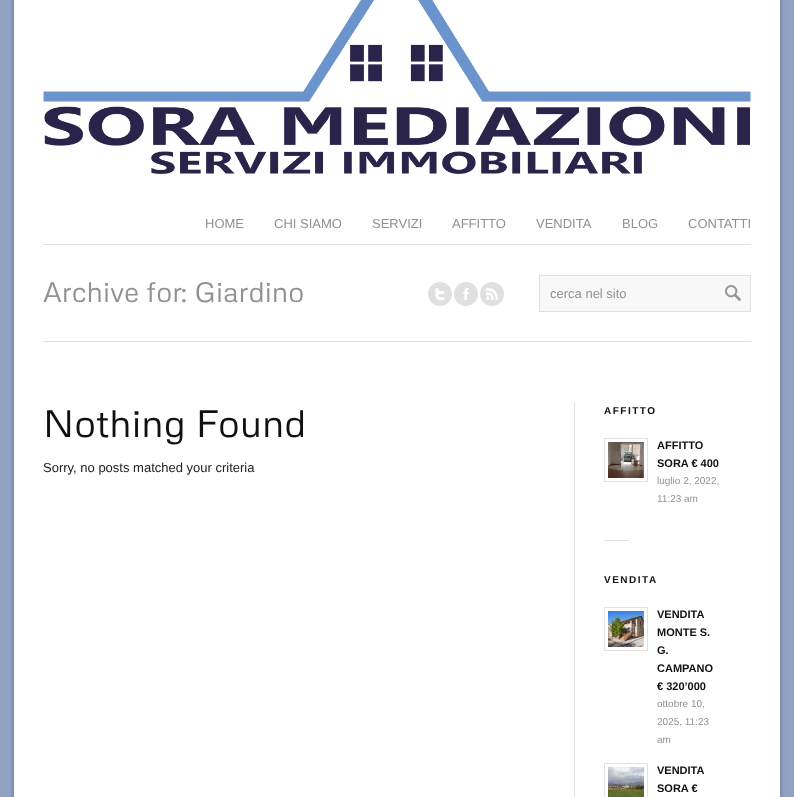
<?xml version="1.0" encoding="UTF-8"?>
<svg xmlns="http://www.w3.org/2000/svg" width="794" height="797">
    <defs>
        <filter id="blur1" x="-50%" y="-200%" width="200%" height="500%"><feGaussianBlur stdDeviation="2.5"/></filter>
    </defs>
    <rect width="100%" height="100%" fill="#91A2C2"/>
    <rect x="14" y="-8" width="766" height="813" fill="#000000" fill-opacity="0.3" filter="url(#blur1)"/>
    <rect x="14" y="0" width="766" height="797" fill="#FFFFFF"/>
    <rect x="43" y="244" width="708" height="1" fill="#E1E1E1"/>
    <image x="43" y="0" width="708" height="174" href="img_01.png"/>
    <text x="205" y="228" font-family="Liberation Sans" font-size="13" fill="#919191">HOME</text>
    <text x="274" y="228" font-family="Liberation Sans" font-size="13" fill="#919191">CHI SIAMO</text>
    <text x="372" y="228" font-family="Liberation Sans" font-size="13" fill="#919191">SERVIZI</text>
    <text x="452" y="228" font-family="Liberation Sans" font-size="13" fill="#919191">AFFITTO</text>
    <text x="536" y="228" font-family="Liberation Sans" font-size="13" fill="#919191">VENDITA</text>
    <text x="622" y="228" font-family="Liberation Sans" font-size="13" fill="#919191">BLOG</text>
    <text x="688" y="228" font-family="Liberation Sans" font-size="13" fill="#919191">CONTATTI</text>
    <rect x="43" y="341" width="708" height="1" fill="#E1E1E1"/>
    <text x="43" y="302" font-family="Metrophobic" font-size="28" fill="#919191">Archive for: Giardino</text>
    <image x="428" y="282" width="24" height="24" href="img_02.png"/>
    <image x="454" y="282" width="24" height="24" href="img_03.png"/>
    <image x="480" y="282" width="24" height="24" href="img_04.png"/>
    <rect x="539.5" y="275.5" width="211" height="36" fill="#F8F8F8" stroke="#E1E1E1"/>
    <text x="550" y="298" font-family="Liberation Sans" font-size="13" fill="#919191">cerca nel sito</text>
    <image x="725" y="285" width="16" height="16" href="img_05.png"/>
    <text x="43" y="437" font-family="Metrophobic" font-size="38" fill="#111111">Nothing Found</text>
    <text x="43" y="472" font-family="Liberation Sans" font-size="13" fill="#222222">Sorry, no posts matched your criteria</text>
    <rect x="574" y="402" width="1" height="395" fill="#E1E1E1"/>
    <text x="604" y="414" font-family="Liberation Sans" font-size="10" font-weight="700" letter-spacing="1.5" fill="#111111">AFFITTO</text>
    <rect x="604.5" y="438.5" width="43" height="43" fill="none" stroke="#E1E1E1"/>
    <image x="608" y="442" width="36" height="36" href="img_06.png"/>
    <text font-family="Liberation Sans" font-size="11" font-weight="700" fill="#111111">
        <tspan x="657" y="449">AFFITTO</tspan>
        <tspan x="657" y="467">SORA € 400</tspan>
    </text>
    <text font-family="Liberation Sans" font-size="10" fill="#919191">
        <tspan x="657" y="484">luglio 2, 2022,</tspan>
        <tspan x="657" y="502">11:23 am</tspan>
    </text>
    <rect x="604" y="540" width="25" height="1" fill="#E1E1E1"/>
    <text x="604" y="583" font-family="Liberation Sans" font-size="10" font-weight="700" letter-spacing="1.5" fill="#111111">VENDITA</text>
    <rect x="604.5" y="607.5" width="43" height="43" fill="none" stroke="#E1E1E1"/>
    <image x="608" y="611" width="36" height="36" href="img_07.png"/>
    <text font-family="Liberation Sans" font-size="11" font-weight="700" fill="#111111">
        <tspan x="657" y="618">VENDITA</tspan>
        <tspan x="657" y="636">MONTE S.</tspan>
        <tspan x="657" y="654">G.</tspan>
        <tspan x="657" y="672">CAMPANO</tspan>
        <tspan x="657" y="690">€ 320’000</tspan>
    </text>
    <text font-family="Liberation Sans" font-size="10" fill="#919191">
        <tspan x="657" y="707">ottobre 10,</tspan>
        <tspan x="657" y="725">2025, 11:23</tspan>
        <tspan x="657" y="743">am</tspan>
    </text>
    <rect x="604.5" y="763.5" width="43" height="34" fill="none" stroke="#E1E1E1"/>
    <image x="608" y="767" width="36" height="30" href="img_08.png"/>
    <text font-family="Liberation Sans" font-size="11" font-weight="700" fill="#111111">
        <tspan x="657" y="774">VENDITA</tspan>
        <tspan x="657" y="792">SORA €</tspan>
    </text>
</svg>
